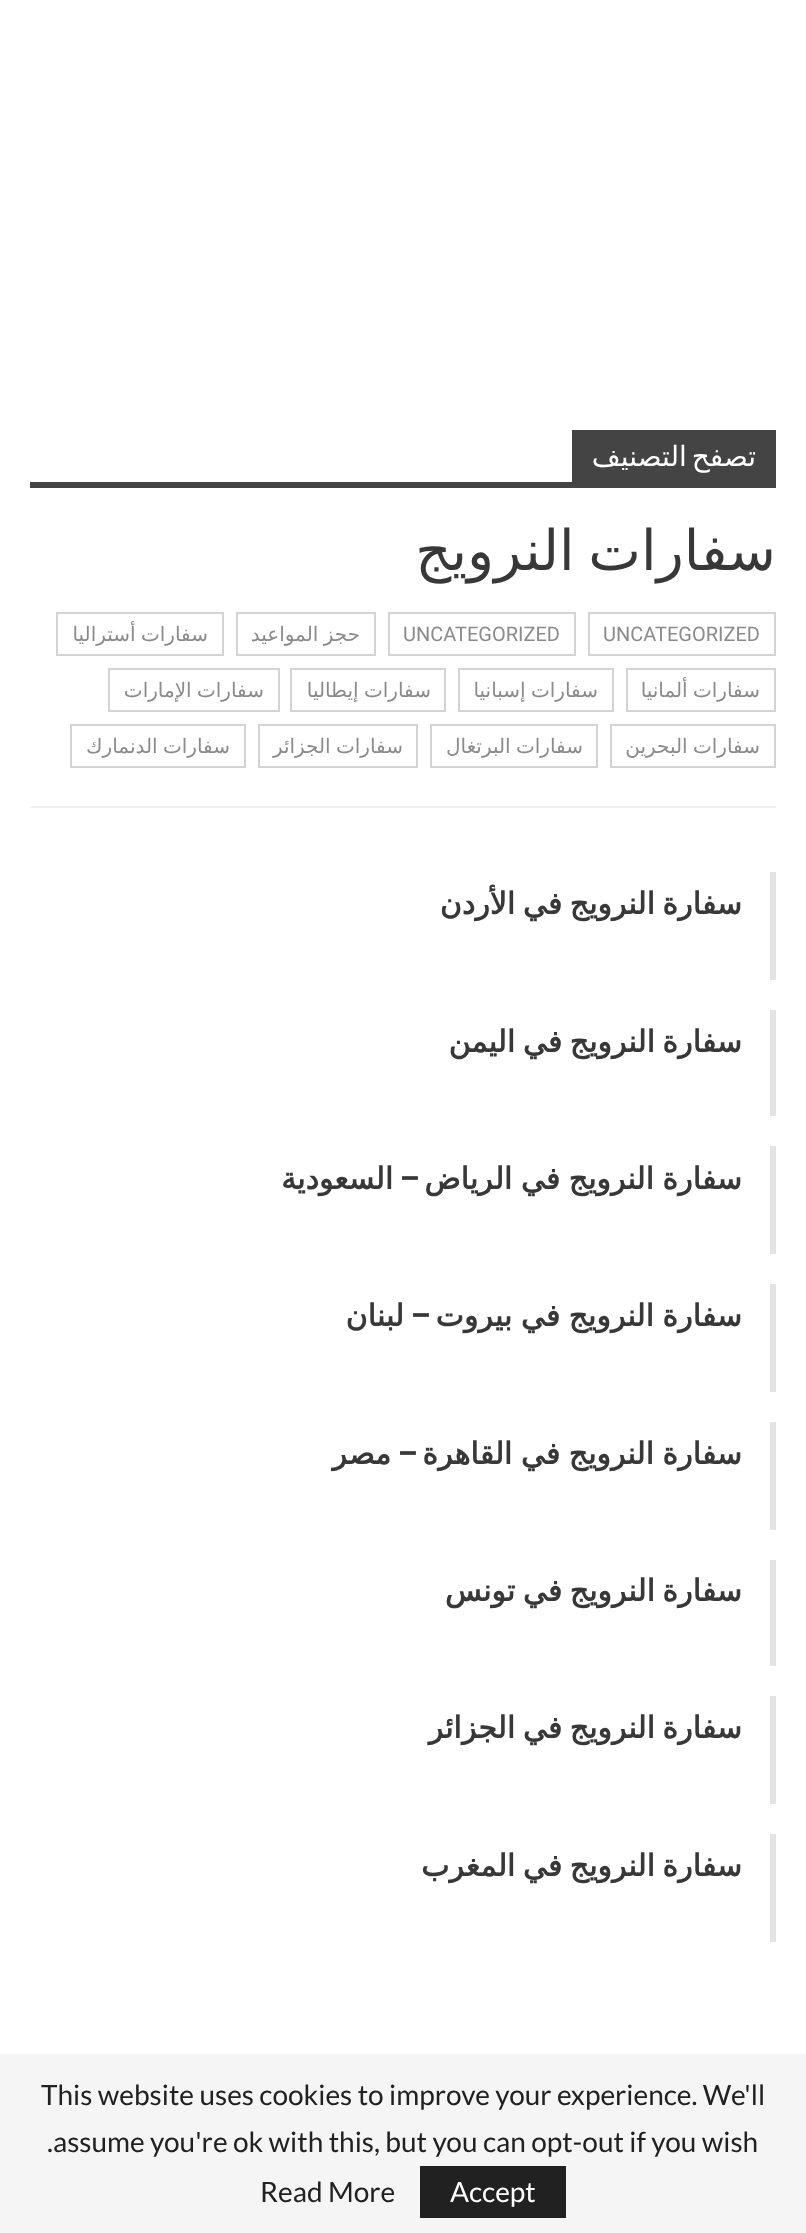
<?xml version="1.0" encoding="UTF-8"?>
<svg xmlns="http://www.w3.org/2000/svg" width="806" height="2233">
    <rect width="100%" height="100%" fill="#FFFFFF"/>
    <rect x="30" y="806" width="746" height="2" fill="#F0F0F0"/>
    <rect x="572" y="430" width="204" height="52" fill="#444444"/>
    <text x="756" y="466" word-spacing="-4" font-family="DejaVu Sans" font-size="28" direction="rtl" fill="#FFFFFF">تصفح التصنيف</text>
    <rect x="30" y="482" width="746" height="6" fill="#444444"/>
    <text x="776" y="570" word-spacing="-4" font-family="DejaVu Sans" font-size="56" direction="rtl" fill="#383838">سفارات النرويج</text>
    <rect x="589" y="613" width="186" height="42" fill="none" stroke="#D4D4D4" stroke-width="2"/>
    <text x="603" y="641" font-family="Roboto" font-size="20" fill="#8B8B8B">UNCATEGORIZED</text>
    <rect x="389" y="613" width="186" height="42" fill="none" stroke="#D4D4D4" stroke-width="2"/>
    <text x="403" y="641" font-family="Roboto" font-size="20" fill="#8B8B8B">UNCATEGORIZED</text>
    <rect x="237" y="613" width="138" height="42" fill="none" stroke="#D4D4D4" stroke-width="2"/>
    <text x="360" y="641" word-spacing="-1" font-family="DejaVu Sans" font-size="20" direction="rtl" fill="#8B8B8B">حجز المواعيد</text>
    <rect x="57" y="613" width="166" height="42" fill="none" stroke="#D4D4D4" stroke-width="2"/>
    <text x="208" y="641" word-spacing="-1" font-family="DejaVu Sans" font-size="20" direction="rtl" fill="#8B8B8B">سفارات أستراليا</text>
    <rect x="627" y="669" width="148" height="42" fill="none" stroke="#D4D4D4" stroke-width="2"/>
    <text x="760" y="697" word-spacing="-1" font-family="DejaVu Sans" font-size="20" direction="rtl" fill="#8B8B8B">سفارات ألمانيا</text>
    <rect x="459" y="669" width="154" height="42" fill="none" stroke="#D4D4D4" stroke-width="2"/>
    <text x="598" y="697" word-spacing="-1" font-family="DejaVu Sans" font-size="20" direction="rtl" fill="#8B8B8B">سفارات إسبانيا</text>
    <rect x="291" y="669" width="154" height="42" fill="none" stroke="#D4D4D4" stroke-width="2"/>
    <text x="431" y="697" word-spacing="-1" font-family="DejaVu Sans" font-size="20" direction="rtl" fill="#8B8B8B">سفارات إيطاليا</text>
    <rect x="109" y="669" width="170" height="42" fill="none" stroke="#D4D4D4" stroke-width="2"/>
    <text x="264" y="697" word-spacing="-1" font-family="DejaVu Sans" font-size="20" direction="rtl" fill="#8B8B8B">سفارات الإمارات</text>
    <rect x="611" y="725" width="164" height="42" fill="none" stroke="#D4D4D4" stroke-width="2"/>
    <text x="760" y="753" word-spacing="-1" font-family="DejaVu Sans" font-size="20" direction="rtl" fill="#8B8B8B">سفارات البحرين</text>
    <rect x="431" y="725" width="166" height="42" fill="none" stroke="#D4D4D4" stroke-width="2"/>
    <text x="583" y="753" word-spacing="-1" font-family="DejaVu Sans" font-size="20" direction="rtl" fill="#8B8B8B">سفارات البرتغال</text>
    <rect x="259" y="725" width="158" height="42" fill="none" stroke="#D4D4D4" stroke-width="2"/>
    <text x="403" y="753" word-spacing="-1" font-family="DejaVu Sans" font-size="20" direction="rtl" fill="#8B8B8B">سفارات الجزائر</text>
    <rect x="71" y="725" width="174" height="42" fill="none" stroke="#D4D4D4" stroke-width="2"/>
    <text x="230" y="753" word-spacing="-1" font-family="DejaVu Sans" font-size="20" direction="rtl" fill="#8B8B8B">سفارات الدنمارك</text>
    <rect x="770" y="872" width="6" height="108" fill="#E3E3E3"/>
    <text x="742" y="914" word-spacing="-2" font-family="DejaVu Sans" font-size="30" font-weight="700" direction="rtl" fill="#383838">سفارة النرويج في الأردن</text>
    <rect x="770" y="1010" width="6" height="106" fill="#E3E3E3"/>
    <text x="742" y="1052" word-spacing="-2" font-family="DejaVu Sans" font-size="30" font-weight="700" direction="rtl" fill="#383838">سفارة النرويج في اليمن</text>
    <rect x="770" y="1146" width="6" height="108" fill="#E3E3E3"/>
    <text x="742" y="1189" word-spacing="-1" font-family="DejaVu Sans" font-size="30" font-weight="700" direction="rtl" fill="#383838">سفارة النرويج في الرياض</text>
    <text x="419" y="1189" font-family="Roboto" font-size="30" font-weight="700" direction="rtl" fill="#383838">–</text>
    <text x="393" y="1189" font-family="DejaVu Sans" font-size="30" font-weight="700" direction="rtl" fill="#383838">السعودية</text>
    <rect x="770" y="1284" width="6" height="108" fill="#E3E3E3"/>
    <text x="742" y="1326" word-spacing="-1" font-family="DejaVu Sans" font-size="30" font-weight="700" direction="rtl" fill="#383838">سفارة النرويج في بيروت</text>
    <text x="430" y="1326" font-family="Roboto" font-size="30" font-weight="700" direction="rtl" fill="#383838">–</text>
    <text x="404" y="1326" font-family="DejaVu Sans" font-size="30" font-weight="700" direction="rtl" fill="#383838">لبنان</text>
    <rect x="770" y="1422" width="6" height="108" fill="#E3E3E3"/>
    <text x="742" y="1464" word-spacing="-1" font-family="DejaVu Sans" font-size="30" font-weight="700" direction="rtl" fill="#383838">سفارة النرويج في القاهرة</text>
    <text x="417" y="1464" font-family="Roboto" font-size="30" font-weight="700" direction="rtl" fill="#383838">–</text>
    <text x="391" y="1464" font-family="DejaVu Sans" font-size="30" font-weight="700" direction="rtl" fill="#383838">مصر</text>
    <rect x="770" y="1560" width="6" height="106" fill="#E3E3E3"/>
    <text x="742" y="1601" word-spacing="-2" font-family="DejaVu Sans" font-size="30" font-weight="700" direction="rtl" fill="#383838">سفارة النرويج في تونس</text>
    <rect x="770" y="1696" width="6" height="108" fill="#E3E3E3"/>
    <text x="742" y="1738" word-spacing="-2" font-family="DejaVu Sans" font-size="30" font-weight="700" direction="rtl" fill="#383838">سفارة النرويج في الجزائر</text>
    <rect x="770" y="1834" width="6" height="108" fill="#E3E3E3"/>
    <text x="742" y="1876" word-spacing="-2" font-family="DejaVu Sans" font-size="30" font-weight="700" direction="rtl" fill="#383838">سفارة النرويج في المغرب</text>
    <rect x="0" y="2054" width="806" height="179" fill="#F5F5F5"/>
    <text x="41" y="2105" font-family="Lato" font-size="28" fill="#212121">This website uses cookies to improve your experience. We'll</text>
    <text x="47" y="2152" font-family="Lato" font-size="28" fill="#212121">.assume you're ok with this, but you can opt-out if you wish</text>
    <rect x="420" y="2166" width="146" height="52" fill="#212121"/>
    <text x="450" y="2202" font-family="Lato" font-size="28" fill="#FFFFFF">Accept</text>
    <text x="260" y="2202" font-family="Lato" font-size="28" fill="#212121">Read More</text>
</svg>
